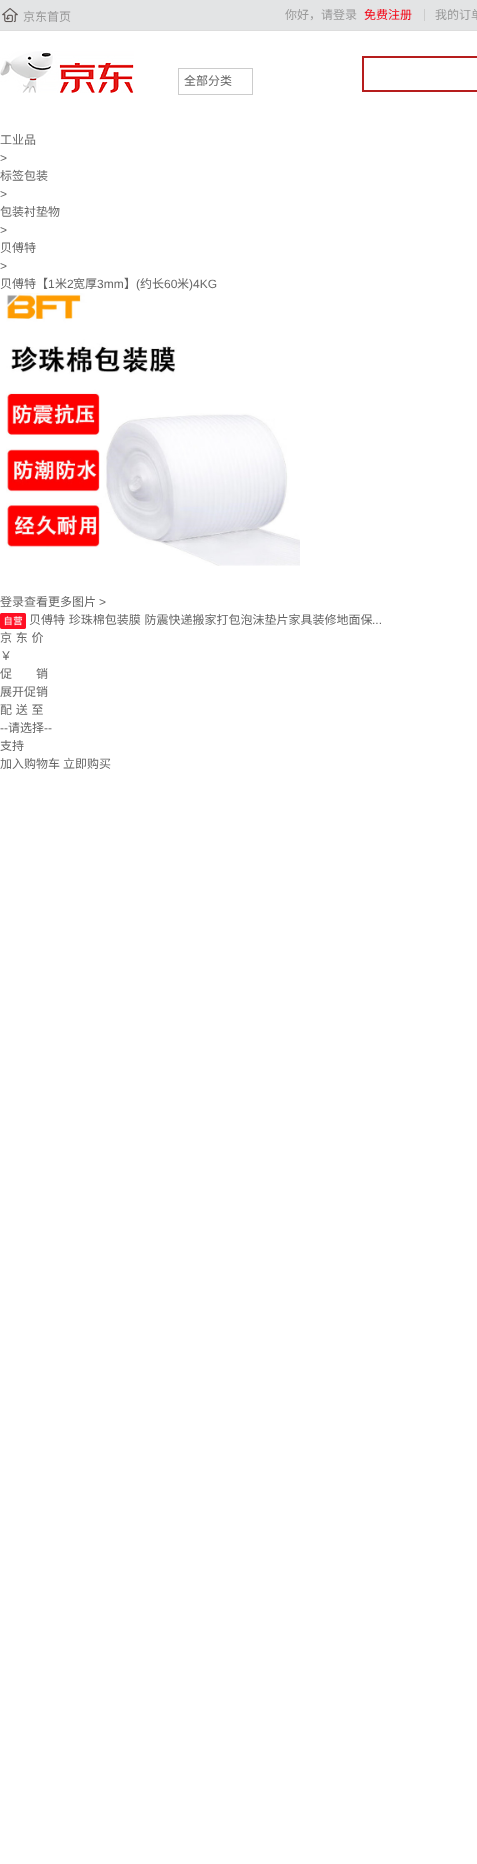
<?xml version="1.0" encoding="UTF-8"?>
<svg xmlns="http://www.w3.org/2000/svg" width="477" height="1864">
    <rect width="100%" height="100%" fill="#FFFFFF"/>
    <rect x="0" y="0" width="477" height="30" fill="#E3E4E5"/>
    <rect x="0" y="30" width="477" height="1" fill="#DDDDDD"/>
    <image x="2" y="8" width="16" height="15" href="img_01.png"/>
    <text x="23" y="21" font-family="Noto Sans CJK SC" font-size="12" fill="#999999">京东首页</text>
    <text x="285" y="19" font-family="Noto Sans CJK SC" font-size="12" fill="#999999">你好，请登录</text>
    <text x="364" y="19" font-family="Noto Sans CJK SC" font-size="12" fill="#F30213">免费注册</text>
    <rect x="424" y="9" width="1" height="12" fill="#CCCCCC"/>
    <text x="435" y="19" font-family="Noto Sans CJK SC" font-size="12" fill="#999999">我的订单</text>
    <image x="0" y="51" width="134" height="42" href="img_02.png"/>
    <rect x="178.5" y="68.5" width="74" height="26" fill="none" stroke="#CCCCCC"/>
    <text x="184" y="85" font-family="Noto Sans CJK SC" font-size="12" fill="#666666">全部分类</text>
    <rect x="362" y="56" width="115" height="2" fill="#B61D1D"/>
    <rect x="362" y="90" width="115" height="2" fill="#B61D1D"/>
    <rect x="362" y="56" width="2" height="36" fill="#B61D1D"/>
    <text x="0" y="144" font-family="Noto Sans CJK SC" font-size="12" fill="#666666">工业品</text>
    <text x="0" y="162" font-family="Liberation Sans" font-size="12" fill="#666666">&gt;</text>
    <text x="0" y="180" font-family="Noto Sans CJK SC" font-size="12" fill="#666666">标签包装</text>
    <text x="0" y="198" font-family="Liberation Sans" font-size="12" fill="#666666">&gt;</text>
    <text x="0" y="216" font-family="Noto Sans CJK SC" font-size="12" fill="#666666">包装衬垫物</text>
    <text x="0" y="234" font-family="Liberation Sans" font-size="12" fill="#666666">&gt;</text>
    <text x="0" y="252" font-family="Noto Sans CJK SC" font-size="12" fill="#666666">贝傅特</text>
    <text x="0" y="270" font-family="Liberation Sans" font-size="12" fill="#666666">&gt;</text>
    <text x="0" y="288" font-family="Noto Sans CJK SC" font-size="12" fill="#666666">贝傅特【</text>
    <text x="48" y="288" font-family="Liberation Sans" font-size="12" fill="#666666">1</text>
    <text x="55" y="288" font-family="Noto Sans CJK SC" font-size="12" fill="#666666">米</text>
    <text x="67" y="288" font-family="Liberation Sans" font-size="12" fill="#666666">2</text>
    <text x="73" y="288" font-family="Noto Sans CJK SC" font-size="12" fill="#666666">宽厚</text>
    <text x="97" y="288" font-family="Liberation Sans" font-size="12" fill="#666666">3mm</text>
    <text x="124" y="288" font-family="Noto Sans CJK SC" font-size="12" fill="#666666">】</text>
    <text x="136" y="288" font-family="Liberation Sans" font-size="12" fill="#666666">(</text>
    <text x="140" y="288" font-family="Noto Sans CJK SC" font-size="12" fill="#666666">约长</text>
    <text x="164" y="288" font-family="Liberation Sans" font-size="12" fill="#666666">60</text>
    <text x="177" y="288" font-family="Noto Sans CJK SC" font-size="12" fill="#666666">米</text>
    <text x="189" y="288" font-family="Liberation Sans" font-size="12" fill="#666666">)4KG</text>
    <image x="6" y="293" width="294" height="273" href="img_03.png"/>
    <text x="0" y="606" font-family="Noto Sans CJK SC" font-size="12" fill="#666666">登录查看更多图片</text>
    <text x="99" y="606" font-family="Liberation Sans" font-size="12" fill="#666666">&gt;</text>
    <image x="0" y="613" width="26" height="16" href="img_04.png"/>
    <text x="29" y="624" word-spacing="1" font-family="Noto Sans CJK SC" font-size="12" fill="#666666">贝傅特 珍珠棉包装膜 防震快递搬家打包泡沫垫片家具装修地面保</text>
    <text x="372" y="624" font-family="Liberation Sans" font-size="12" fill="#666666">...</text>
    <text font-family="Noto Sans CJK SC" font-size="12" fill="#666666">
        <tspan x="0" y="642" word-spacing="1">京 东 价</tspan>
        <tspan x="0" y="660">￥</tspan>
        <tspan x="0" y="678">促　　销</tspan>
        <tspan x="0" y="696">展开促销</tspan>
        <tspan x="0" y="714" word-spacing="1">配 送 至</tspan>
    </text>
    <text x="0" y="732" font-family="Liberation Sans" font-size="12" fill="#666666">--</text>
    <text x="8" y="732" font-family="Noto Sans CJK SC" font-size="12" fill="#666666">请选择</text>
    <text x="44" y="732" font-family="Liberation Sans" font-size="12" fill="#666666">--</text>
    <text font-family="Noto Sans CJK SC" font-size="12" fill="#666666">
        <tspan x="0" y="750">支持</tspan>
        <tspan x="0" y="768">加入购物车</tspan>
    </text>
    <text x="63" y="768" font-family="Noto Sans CJK SC" font-size="12" fill="#666666">立即购买</text>
</svg>
